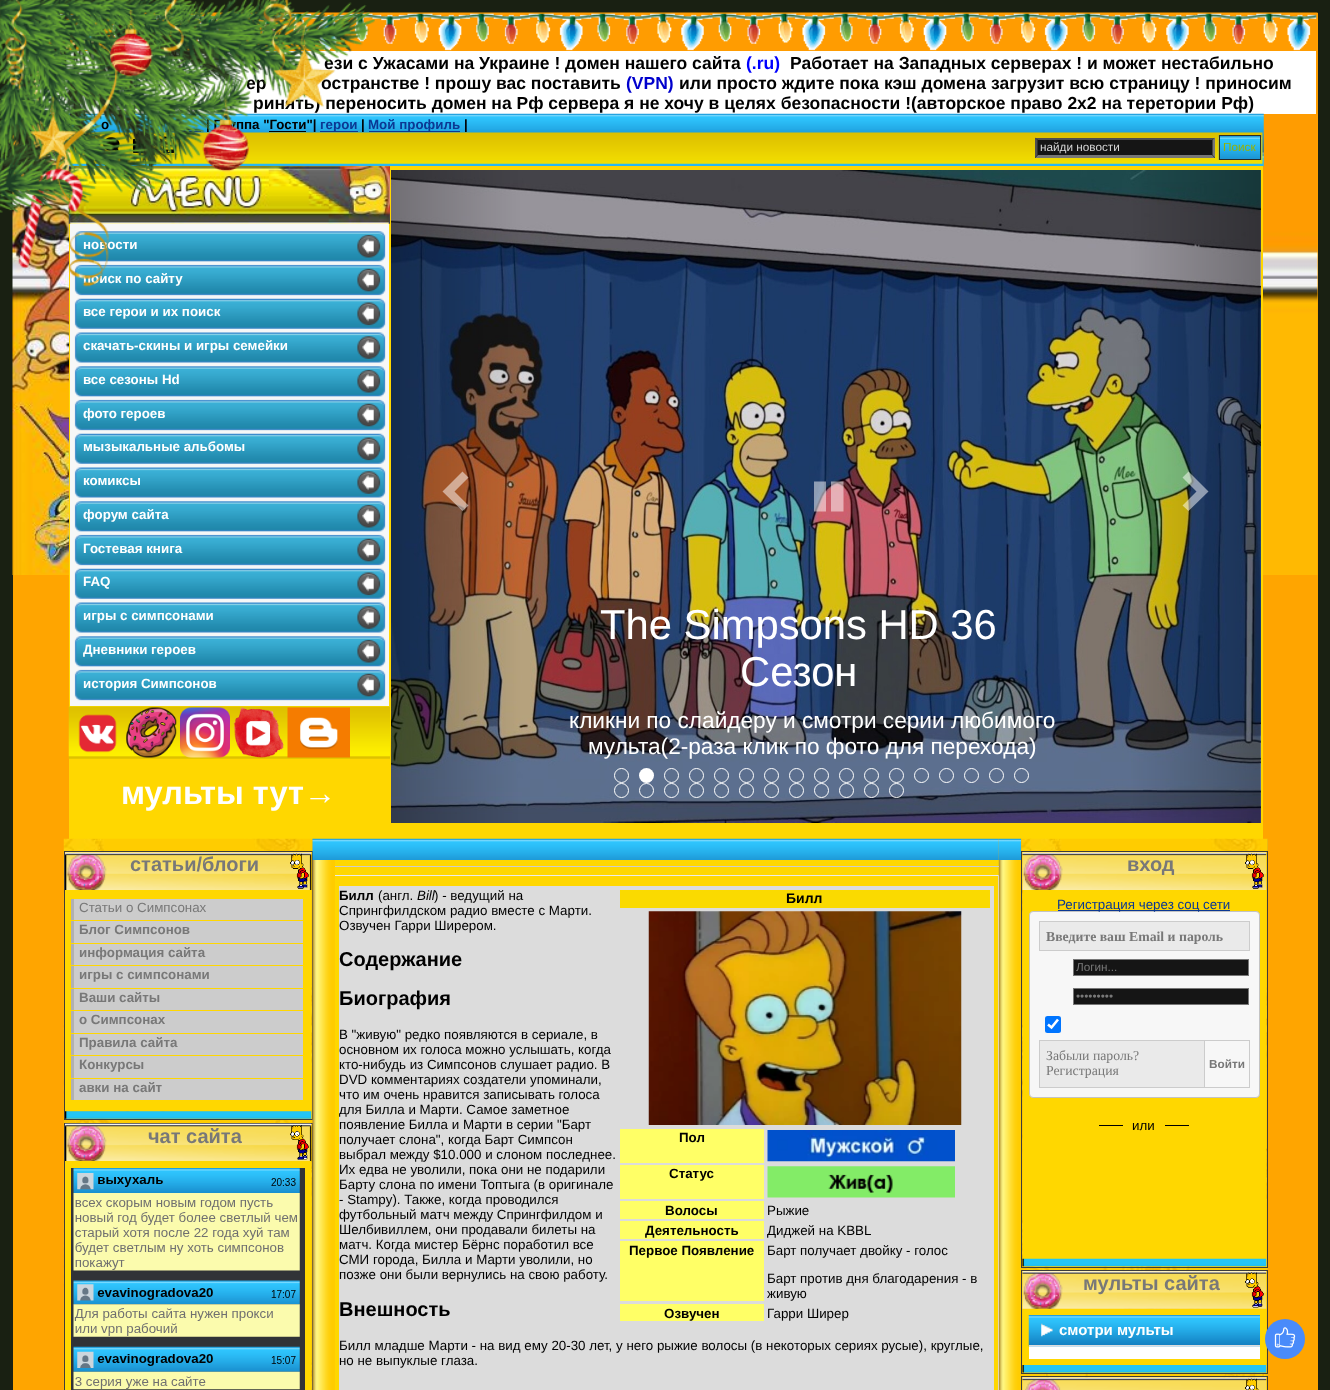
<?xml version="1.0" encoding="UTF-8"?>
<svg xmlns="http://www.w3.org/2000/svg" width="1330" height="1390">
    <rect width="100%" height="100%" fill="#192012"/>
    <rect x="13" y="13" width="1305" height="1377" fill="#FFA500"/>
    <image x="12" y="12" width="1306" height="563" href="img_01.png"/>
    <image x="13" y="13" width="1304" height="38" href="img_03.png"/>
    <rect x="14" y="51" width="1302" height="63" fill="#FFFFFF"/>
    <text x="324" y="69" font-family="Liberation Sans" font-size="17.5" font-weight="700" fill="#000000">ези с Ужасами на Украине ! домен нашего сайта</text>
    <text x="246" y="89" font-family="Liberation Sans" font-size="17.5" font-weight="700" fill="#000000">ер</text>
    <text x="321" y="89" font-family="Liberation Sans" font-size="17.5" font-weight="700" fill="#000000">остранстве ! прошу вас поставить</text>
    <text x="253" y="109" font-family="Liberation Sans" font-size="17.5" font-weight="700" fill="#000000">ринять) переносить домен на Рф сервера я не хочу в целях безопасности !(авторское право 2х2 на теретории Рф)</text>
    <image x="67" y="113" width="1197" height="54" href="img_04.png"/>
    <text x="101" y="129" font-family="Liberation Sans" font-size="13.35" font-weight="700" fill="#000000">о</text>
    <text x="206" y="129" font-family="Liberation Sans" font-size="13.35" font-weight="700" fill="#000000">| Группа "Гости"|</text>
    <rect x="165" y="131" width="36" height="1" fill="#0B3893"/>
    <rect x="269" y="131" width="37" height="1" fill="#000000"/>
    <rect x="320" y="131" width="38" height="1" fill="#0B3893"/>
    <text x="320" y="129" font-family="Liberation Sans" font-size="13.35" font-weight="700" fill="#0B3893">герои</text>
    <text x="361" y="129" font-family="Liberation Sans" font-size="13.35" font-weight="700" fill="#000000">|</text>
    <rect x="369" y="131" width="91" height="1" fill="#0B3893"/>
    <text x="368" y="129" font-family="Liberation Sans" font-size="13.35" font-weight="700" fill="#0B3893">Мой профиль</text>
    <image x="68" y="132" width="1195" height="32" href="img_05.png"/>
    <image x="74" y="137" width="15" height="21" href="img_06.png"/>
    <image x="102" y="137" width="18" height="19" href="img_07.png"/>
    <image x="132" y="138" width="15" height="20" href="img_08.png"/>
    <image x="162" y="136" width="13" height="22" href="img_09.png"/>
    <rect x="69" y="166" width="1194" height="673" fill="#FFD700"/>
    <image x="68" y="166" width="322" height="58" href="img_11.png"/>
    <rect x="70" y="224" width="319" height="482" fill="#F6F7F7"/>
    <image x="74" y="231" width="312" height="31" href="img_12.png"/>
    <text x="83" y="249" font-family="Liberation Sans" font-size="13.35" font-weight="700" fill="#FFFFFF">новости</text>
    <image x="74" y="264" width="312" height="32" href="img_13.png"/>
    <text x="83" y="283" font-family="Liberation Sans" font-size="13.35" font-weight="700" fill="#FFFFFF">поиск по сайту</text>
    <image x="0" y="0" width="375" height="287" href="img_02.png"/>
    <text x="746" y="69" font-family="Liberation Sans" font-size="17.5" font-weight="700" fill="#0000FF">(.ru)</text>
    <text x="790" y="69" font-family="Liberation Sans" font-size="17.5" font-weight="700" fill="#000000">Работает на Западных серверах ! и может нестабильно</text>
    <text x="626" y="89" font-family="Liberation Sans" font-size="17.5" font-weight="700" fill="#0000CD">(VPN)</text>
    <text x="679" y="89" font-family="Liberation Sans" font-size="17.5" font-weight="700" fill="#000000">или просто ждите пока кэш домена загрузит всю страницу ! приносим</text>
    <text x="464" y="129" font-family="Liberation Sans" font-size="13.35" font-weight="700" fill="#000000">|</text>
    <rect x="1035" y="138" width="180" height="20" fill="#151515"/>
    <path d="M 1035 138 H 1215 L 1212 140 H 1038 Z" fill="#4F4F4F"/>
    <path d="M 1215 137.5 V 157.5 L 1212.5 155 V 140 Z" fill="#767676"/>
    <path d="M 1215 158 H 1035 L 1038 155 H 1212 Z" fill="#767676"/>
    <path d="M 1035 157.5 V 137.5 L 1037.5 140 V 155 Z" fill="#4F4F4F"/>
    <text x="1040" y="151" font-family="Liberation Sans" font-size="11.75" fill="#D8D8D8">найди новости</text>
    <image x="1218" y="135" width="44" height="25" href="img_10.png"/>
    <rect x="1219.5" y="135.5" width="41" height="24" fill="none" stroke="#292929"/>
    <text x="1223" y="151" font-family="Liberation Sans" font-size="11.75" fill="#98B400">Поиск</text>
    <image x="74" y="298" width="312" height="31" href="img_14.png"/>
    <text x="83" y="316" font-family="Liberation Sans" font-size="13.35" font-weight="700" fill="#FFFFFF">все герои и их поиск</text>
    <image x="74" y="332" width="312" height="31" href="img_15.png"/>
    <text x="83" y="350" font-family="Liberation Sans" font-size="13.35" font-weight="700" fill="#FFFFFF">скачать-скины и игры семейки</text>
    <image x="74" y="366" width="312" height="31" href="img_12.png"/>
    <text x="83" y="384" font-family="Liberation Sans" font-size="13.35" font-weight="700" fill="#FFFFFF">все сезоны Hd</text>
    <image x="74" y="399" width="312" height="32" href="img_13.png"/>
    <text x="83" y="418" font-family="Liberation Sans" font-size="13.35" font-weight="700" fill="#FFFFFF">фото героев</text>
    <image x="74" y="433" width="312" height="31" href="img_14.png"/>
    <text x="83" y="451" font-family="Liberation Sans" font-size="13.35" font-weight="700" fill="#FFFFFF">мызыкальные альбомы</text>
    <image x="74" y="467" width="312" height="31" href="img_15.png"/>
    <text x="83" y="485" font-family="Liberation Sans" font-size="13.35" font-weight="700" fill="#FFFFFF">комиксы</text>
    <image x="74" y="501" width="312" height="31" href="img_12.png"/>
    <text x="83" y="519" font-family="Liberation Sans" font-size="13.35" font-weight="700" fill="#FFFFFF">форум сайта</text>
    <image x="74" y="534" width="312" height="32" href="img_13.png"/>
    <text x="83" y="553" font-family="Liberation Sans" font-size="13.35" font-weight="700" fill="#FFFFFF">Гостевая книга</text>
    <image x="74" y="568" width="312" height="31" href="img_16.png"/>
    <text x="83" y="586" font-family="Liberation Sans" font-size="13.35" font-weight="700" fill="#FFFFFF">FAQ</text>
    <image x="74" y="602" width="312" height="31" href="img_15.png"/>
    <text x="83" y="620" font-family="Liberation Sans" font-size="13.35" font-weight="700" fill="#FFFFFF">игры с симпсонами</text>
    <image x="74" y="636" width="312" height="31" href="img_12.png"/>
    <text x="83" y="654" font-family="Liberation Sans" font-size="13.35" font-weight="700" fill="#FFFFFF">Дневники героев</text>
    <image x="74" y="669" width="312" height="32" href="img_13.png"/>
    <text x="83" y="688" font-family="Liberation Sans" font-size="13.35" font-weight="700" fill="#FFFFFF">история Симпсонов</text>
    <image x="68" y="706" width="322" height="53" href="img_17.png"/>
    <image x="78" y="714" width="39" height="39" href="img_18.png"/>
    <image x="126" y="707" width="51" height="51" href="img_19.png"/>
    <image x="180" y="707" width="50" height="51" href="img_20.png"/>
    <image x="233" y="707" width="51" height="51" href="img_21.png"/>
    <image x="287" y="707" width="63" height="51" href="img_22.png"/>
    <text x="121" y="804" font-family="Liberation Sans" font-size="32.5" font-weight="700" fill="#FFFFFF">мульты тут→</text>
    <image x="391" y="170" width="870" height="653" href="img_23.png"/>
    <path d="M 442.5 491.5 L 462.5 471.5 L 468.5 477.5 L 454.5 491.5 L 468.5 505.5 L 462.5 511 Z" fill="#FFFFFF" fill-opacity="0.5"/>
    <path d="M 814 511.5 V 481.5 H 826 V 511.5 Z M 831 511.5 V 481.5 H 843.5 V 511.5 Z" fill="#FFFFFF" fill-opacity="0.5"/>
    <path d="M 1182.5 505.5 L 1196.5 491.5 L 1182.5 477.5 L 1188.5 471.5 L 1208.5 491.5 L 1188.5 511 Z" fill="#FFFFFF" fill-opacity="0.5"/>
    <circle cx="621.5" cy="775.5" r="7" fill="none" stroke="#FFFFFF"/>
    <circle cx="646.5" cy="775.5" r="7.5" fill="#FFFFFF"/>
    <circle cx="671.5" cy="775.5" r="7" fill="none" stroke="#FFFFFF"/>
    <circle cx="696.5" cy="775.5" r="7" fill="none" stroke="#FFFFFF"/>
    <circle cx="721.5" cy="775.5" r="7" fill="none" stroke="#FFFFFF"/>
    <circle cx="746.5" cy="775.5" r="7" fill="none" stroke="#FFFFFF"/>
    <circle cx="771.5" cy="775.5" r="7" fill="none" stroke="#FFFFFF"/>
    <circle cx="796.5" cy="775.5" r="7" fill="none" stroke="#FFFFFF"/>
    <circle cx="821.5" cy="775.5" r="7" fill="none" stroke="#FFFFFF"/>
    <circle cx="846.5" cy="775.5" r="7" fill="none" stroke="#FFFFFF"/>
    <circle cx="871.5" cy="775.5" r="7" fill="none" stroke="#FFFFFF"/>
    <circle cx="896.5" cy="775.5" r="7" fill="none" stroke="#FFFFFF"/>
    <circle cx="921.5" cy="775.5" r="7" fill="none" stroke="#FFFFFF"/>
    <circle cx="946.5" cy="775.5" r="7" fill="none" stroke="#FFFFFF"/>
    <circle cx="971.5" cy="775.5" r="7" fill="none" stroke="#FFFFFF"/>
    <circle cx="996.5" cy="775.5" r="7" fill="none" stroke="#FFFFFF"/>
    <circle cx="1021.5" cy="775.5" r="7" fill="none" stroke="#FFFFFF"/>
    <circle cx="621.5" cy="790.5" r="7" fill="none" stroke="#FFFFFF"/>
    <circle cx="646.5" cy="790.5" r="7" fill="none" stroke="#FFFFFF"/>
    <circle cx="671.5" cy="790.5" r="7" fill="none" stroke="#FFFFFF"/>
    <circle cx="696.5" cy="790.5" r="7" fill="none" stroke="#FFFFFF"/>
    <circle cx="721.5" cy="790.5" r="7" fill="none" stroke="#FFFFFF"/>
    <circle cx="746.5" cy="790.5" r="7" fill="none" stroke="#FFFFFF"/>
    <circle cx="771.5" cy="790.5" r="7" fill="none" stroke="#FFFFFF"/>
    <circle cx="796.5" cy="790.5" r="7" fill="none" stroke="#FFFFFF"/>
    <circle cx="821.5" cy="790.5" r="7" fill="none" stroke="#FFFFFF"/>
    <circle cx="846.5" cy="790.5" r="7" fill="none" stroke="#FFFFFF"/>
    <circle cx="871.5" cy="790.5" r="7" fill="none" stroke="#FFFFFF"/>
    <circle cx="896.5" cy="790.5" r="7" fill="none" stroke="#FFFFFF"/>
    <text x="600" y="639" font-family="Liberation Sans" font-size="41.75" fill="#FFFFFF">The Simpsons HD 36</text>
    <text x="740" y="686" font-family="Liberation Sans" font-size="41.75" fill="#FFFFFF">Сезон</text>
    <text x="569" y="728" font-family="Liberation Sans" font-size="22.65" fill="#FFFFFF">кликни по слайдеру и смотри серии любимого</text>
    <text x="588" y="754" font-family="Liberation Sans" font-size="22.65" fill="#FFFFFF">мульта(2-раза клик по фото для перехода)</text>
    <image x="63" y="838" width="250" height="552" href="img_24.png"/>
    <rect x="64.5" y="851.5" width="248" height="268" fill="none" stroke="#3C3C3C"/>
    <image x="65" y="852" width="247" height="38" href="img_25.png"/>
    <text x="130" y="871" font-family="Liberation Sans" font-size="20" font-weight="700" fill="#787878">статьи/блоги</text>
    <image x="290" y="853" width="19" height="36" href="img_26.png"/>
    <rect x="65" y="890" width="246" height="221" fill="#FFD700"/>
    <rect x="74" y="899" width="229" height="21" fill="#CCCCCC"/>
    <rect x="71" y="899" width="3" height="21" fill="#B1B1B1"/>
    <text x="79" y="912" font-family="Liberation Sans" font-size="13.35" fill="#787878">Статьи о Симпсонах</text>
    <rect x="74" y="921" width="229" height="22" fill="#CCCCCC"/>
    <rect x="71" y="921" width="3" height="22" fill="#B1B1B1"/>
    <text x="79" y="934" font-family="Liberation Sans" font-size="13.35" font-weight="700" fill="#787878">Блог Симпсонов</text>
    <rect x="74" y="944" width="229" height="21" fill="#CCCCCC"/>
    <rect x="71" y="944" width="3" height="21" fill="#B1B1B1"/>
    <text x="79" y="957" font-family="Liberation Sans" font-size="13.35" font-weight="700" fill="#787878">информация сайта</text>
    <rect x="74" y="966" width="229" height="22" fill="#CCCCCC"/>
    <rect x="71" y="966" width="3" height="22" fill="#B1B1B1"/>
    <text x="79" y="979" font-family="Liberation Sans" font-size="13.35" font-weight="700" fill="#787878">игры c симпсонами</text>
    <rect x="74" y="989" width="229" height="21" fill="#CCCCCC"/>
    <rect x="71" y="989" width="3" height="21" fill="#B1B1B1"/>
    <text x="79" y="1002" font-family="Liberation Sans" font-size="13.35" font-weight="700" fill="#787878">Ваши сайты</text>
    <rect x="74" y="1011" width="229" height="22" fill="#CCCCCC"/>
    <rect x="71" y="1011" width="3" height="22" fill="#B1B1B1"/>
    <text x="79" y="1024" font-family="Liberation Sans" font-size="13.35" font-weight="700" fill="#787878">о Симпсонах</text>
    <rect x="74" y="1034" width="229" height="21" fill="#CCCCCC"/>
    <rect x="71" y="1034" width="3" height="21" fill="#B1B1B1"/>
    <text x="79" y="1047" font-family="Liberation Sans" font-size="13.35" font-weight="700" fill="#787878">Правила сайта</text>
    <rect x="74" y="1056" width="229" height="22" fill="#CCCCCC"/>
    <rect x="71" y="1056" width="3" height="22" fill="#B1B1B1"/>
    <text x="79" y="1069" font-family="Liberation Sans" font-size="13.35" font-weight="700" fill="#787878">Конкурсы</text>
    <rect x="74" y="1079" width="229" height="21" fill="#CCCCCC"/>
    <rect x="71" y="1079" width="3" height="21" fill="#B1B1B1"/>
    <text x="79" y="1092" font-family="Liberation Sans" font-size="13.35" font-weight="700" fill="#787878">авки на сайт</text>
    <image x="65" y="1111" width="247" height="8" href="img_27.png"/>
    <rect x="64.5" y="1123.5" width="248" height="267" fill="none" stroke="#3C3C3C"/>
    <image x="65" y="1123" width="247" height="39" href="img_28.png"/>
    <text x="148" y="1143" font-family="Liberation Sans" font-size="20" font-weight="700" fill="#787878">чат сайта</text>
    <image x="290" y="1125" width="19" height="35" href="img_29.png"/>
    <rect x="65" y="1161" width="246" height="229" fill="#FFD700"/>
    <image x="71" y="1168" width="234" height="222" href="img_30.png"/>
    <image x="312" y="838" width="23" height="22" href="img_31.png"/>
    <image x="335" y="838" width="664" height="22" href="img_32.png"/>
    <image x="998" y="838" width="24" height="22" href="img_33.png"/>
    <image x="312" y="860" width="23" height="530" href="img_34.png"/>
    <rect x="335" y="860" width="664" height="530" fill="#FFD700"/>
    <rect x="335" y="875" width="664" height="1" fill="#EBEBEB"/>
    <path d="M 999 875 V 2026 L 998 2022 V 876 Z" fill="#EBEBEB"/>
    <image x="998" y="860" width="23" height="530" href="img_38.png"/>
    <rect x="335" y="866" width="664" height="1" fill="#CCCCCC"/>
    <rect x="339" y="886" width="655" height="504" fill="#DCDCDC"/>
    <text x="339" y="900" font-family="Liberation Sans" font-size="13.35" font-weight="700" fill="#000000">Билл</text>
    <text x="378" y="900" font-family="Liberation Sans" font-size="13.35" fill="#000000">(англ.</text>
    <text x="417" y="900" font-family="Liberation Sans" font-size="13.35" font-style="italic" fill="#000000">Bill</text>
    <text x="434" y="900" font-family="Liberation Sans" font-size="13.35" fill="#000000">) - ведущий на</text>
    <text font-family="Liberation Sans" font-size="13.35" fill="#000000">
        <tspan x="339" y="915">Спрингфилдском радио вместе с Марти.</tspan>
        <tspan x="339" y="930">Озвучен Гарри Ширером.</tspan>
    </text>
    <rect x="620" y="890" width="370" height="18" fill="#FADA00"/>
    <text x="786" y="903" font-family="Liberation Sans" font-size="14" font-weight="700" fill="#000000">Билл</text>
    <image x="648" y="911" width="314" height="214" href="img_35.png"/>
    <rect x="620" y="1129" width="144" height="34" fill="#FFFF66"/>
    <text x="679" y="1142" font-family="Liberation Sans" font-size="13.35" font-weight="700" fill="#000000">Пол</text>
    <image x="767" y="1130" width="188" height="32" href="img_36.png"/>
    <rect x="620" y="1165" width="144" height="34" fill="#FFFF66"/>
    <text x="669" y="1178" font-family="Liberation Sans" font-size="13.35" font-weight="700" fill="#000000">Статус</text>
    <image x="767" y="1166" width="188" height="32" href="img_37.png"/>
    <rect x="620" y="1201" width="144" height="18" fill="#FFFF66"/>
    <text x="665" y="1215" font-family="Liberation Sans" font-size="13.35" font-weight="700" fill="#000000">Волосы</text>
    <text x="767" y="1215" font-family="Liberation Sans" font-size="13.35" fill="#000000">Рыжие</text>
    <rect x="620" y="1221" width="144" height="18" fill="#FFFF66"/>
    <text x="645" y="1235" font-family="Liberation Sans" font-size="13.35" font-weight="700" fill="#000000">Деятельность</text>
    <text x="767" y="1235" font-family="Liberation Sans" font-size="13.35" fill="#000000">Диджей на KBBL</text>
    <rect x="620" y="1241" width="144" height="60" fill="#FFFF66"/>
    <text x="629" y="1255" font-family="Liberation Sans" font-size="13.35" font-weight="700" fill="#000000">Первое Появление</text>
    <text x="767" y="1255" font-family="Liberation Sans" font-size="13.35" fill="#000000">Барт получает двойку - голос</text>
    <text font-family="Liberation Sans" font-size="13.35" fill="#000000">
        <tspan x="767" y="1283">Барт против дня благодарения - в</tspan>
        <tspan x="767" y="1298">живую</tspan>
    </text>
    <rect x="620" y="1304" width="144" height="17" fill="#FFFF66"/>
    <text x="664" y="1318" font-family="Liberation Sans" font-size="13.35" font-weight="700" fill="#000000">Озвучен</text>
    <text x="767" y="1318" font-family="Liberation Sans" font-size="13.35" fill="#000000">Гарри Ширер</text>
    <text font-family="Liberation Sans" font-size="20" font-weight="700" fill="#000000">
        <tspan x="339" y="966">Содержание</tspan>
        <tspan x="339" y="1005">Биография</tspan>
    </text>
    <text font-family="Liberation Sans" font-size="13.35" fill="#000000">
        <tspan x="339" y="1039">В "живую" редко появляются в сериале, в</tspan>
        <tspan x="339" y="1054">основном их голоса можно услышать, когда</tspan>
        <tspan x="339" y="1069">кто-нибудь из Симпсонов слушает радио. В</tspan>
        <tspan x="339" y="1084">DVD комментариях создатели упоминали,</tspan>
        <tspan x="339" y="1099">что им очень нравится записывать голоса</tspan>
        <tspan x="339" y="1114">для Билла и Марти. Самое заметное</tspan>
        <tspan x="339" y="1129">появление Билла и Марти в серии "Барт</tspan>
        <tspan x="339" y="1144">получает слона", когда Барт Симпсон</tspan>
        <tspan x="339" y="1159">выбрал между $10.000 и слоном последнее.</tspan>
        <tspan x="339" y="1174">Их едва не уволили, пока они не подарили</tspan>
        <tspan x="339" y="1189">Барту слона по имени Топтыга (в оригинале</tspan>
        <tspan x="339" y="1204">- Stampy). Также, когда проводился</tspan>
        <tspan x="339" y="1219">футбольный матч между Спрингфилдом и</tspan>
        <tspan x="339" y="1234">Шелбивиллем, они продавали билеты на</tspan>
        <tspan x="339" y="1249">матч. Когда мистер Бёрнс поработил все</tspan>
        <tspan x="339" y="1264">СМИ города, Билла и Марти уволили, но</tspan>
        <tspan x="339" y="1279">позже они были вернулись на свою работу.</tspan>
    </text>
    <text x="339" y="1316" font-family="Liberation Sans" font-size="20" font-weight="700" fill="#000000">Внешность</text>
    <text font-family="Liberation Sans" font-size="13.35" fill="#000000">
        <tspan x="339" y="1350">Билл младше Марти - на вид ему 20-30 лет, у него рыжие волосы (в некоторых сериях русые), круглые,</tspan>
        <tspan x="339" y="1365">но не выпуклые глаза.</tspan>
    </text>
    <rect x="1021" y="839" width="247" height="537" fill="#DAA520"/>
    <image x="1021" y="838" width="247" height="552" href="img_39.png"/>
    <rect x="1021.5" y="851.5" width="246" height="416" fill="none" stroke="#3C3C3C"/>
    <image x="1022" y="852" width="245" height="38" href="img_40.png"/>
    <text x="1127" y="871" font-family="Liberation Sans" font-size="20" font-weight="700" fill="#787878">вход</text>
    <image x="1245" y="853" width="19" height="36" href="img_41.png"/>
    <rect x="1023" y="890" width="243" height="369" fill="#FFD700"/>
    <rect x="1058" y="910" width="172" height="1" fill="#0B3893"/>
    <rect x="1029.5" y="911.5" width="230" height="186" rx="3.5" fill="#F7F7F7" stroke="#C3C3C3"/>
    <text x="1057" y="909" font-family="Liberation Sans" font-size="13.35" fill="#0B3893">Регистрация через соц сети</text>
    <rect x="1039.5" y="921.5" width="210" height="29" fill="#EAEAEA" stroke="#CCCCCC"/>
    <text x="1046" y="941" font-family="Liberation Serif" font-size="13.75" font-weight="700" fill="#787878">Введите ваш Email и пароль</text>
    <rect x="1073.5" y="959.5" width="175" height="16" fill="#151515" stroke="#777777"/>
    <text x="1076" y="971" font-family="Liberation Sans" font-size="11.75" fill="#787878">Логин...</text>
    <rect x="1073.5" y="988.5" width="175" height="16" fill="#151515" stroke="#777777"/>
    <text x="1076" y="1000" font-family="Liberation Sans" font-size="11.75" fill="#787878">•••••••••</text>
    <rect x="1045" y="1016" width="16" height="17" rx="2.5" fill="#0075FF"/>
    <path d="M 1048 1024.5 L 1051.5 1027.5 L 1058 1019.5" fill="none" stroke="#FFFFFF" stroke-width="2.6"/>
    <rect x="1040" y="1041" width="164" height="46" fill="#EAEAEA"/>
    <rect x="1039.5" y="1040.5" width="210" height="47" fill="none" stroke="#CCCCCC"/>
    <text x="1046" y="1060" font-family="Liberation Serif" font-size="13.75" fill="#787878">Забыли пароль?</text>
    <rect x="1204.5" y="1040.5" width="45" height="47" fill="none" stroke="#CCCCCC"/>
    <text x="1209" y="1068" font-family="Liberation Sans" font-size="11.75" font-weight="700" fill="#787878">Войти</text>
    <text x="1046" y="1075" font-family="Liberation Serif" font-size="13.75" fill="#787878">Регистрация</text>
    <rect x="1099" y="1125" width="24" height="1" fill="#000000"/>
    <text x="1132" y="1130" font-family="Liberation Sans" font-size="13.35" fill="#000000">или</text>
    <rect x="1165" y="1125" width="24" height="1" fill="#000000"/>
    <image x="1022" y="1258" width="245" height="9" href="img_42.png"/>
    <rect x="1021.5" y="1270.5" width="246" height="103" fill="none" stroke="#3C3C3C"/>
    <image x="1022" y="1271" width="245" height="38" href="img_43.png"/>
    <text x="1083" y="1290" font-family="Liberation Sans" font-size="20" font-weight="700" fill="#787878">мульты сайта</text>
    <image x="1245" y="1272" width="19" height="36" href="img_44.png"/>
    <rect x="1023" y="1309" width="243" height="56" fill="#FFD700"/>
    <rect x="1029" y="1346" width="231" height="13" fill="#FFFFFF"/>
    <image x="1028" y="1315" width="232" height="32" href="img_45.png"/>
    <image x="1041" y="1323" width="12" height="14" href="img_46.png"/>
    <rect x="1029" y="1345" width="231" height="1" fill="#DDDDDD"/>
    <text x="1059" y="1335" font-family="Liberation Sans" font-size="15" font-weight="700" fill="#FFFFFF">смотри мульты</text>
    <image x="1022" y="1365" width="245" height="8" href="img_47.png"/>
    <rect x="1021.5" y="1376.5" width="246" height="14" fill="none" stroke="#3C3C3C"/>
    <image x="1022" y="1377" width="245" height="13" href="img_48.png"/>
    <image x="1245" y="1378" width="14" height="12" href="img_49.png"/>
    <circle cx="1285" cy="1339" r="20" fill="#498BFA"/>
    <image x="1274" y="1327" width="22" height="21" href="img_50.png"/>
</svg>
